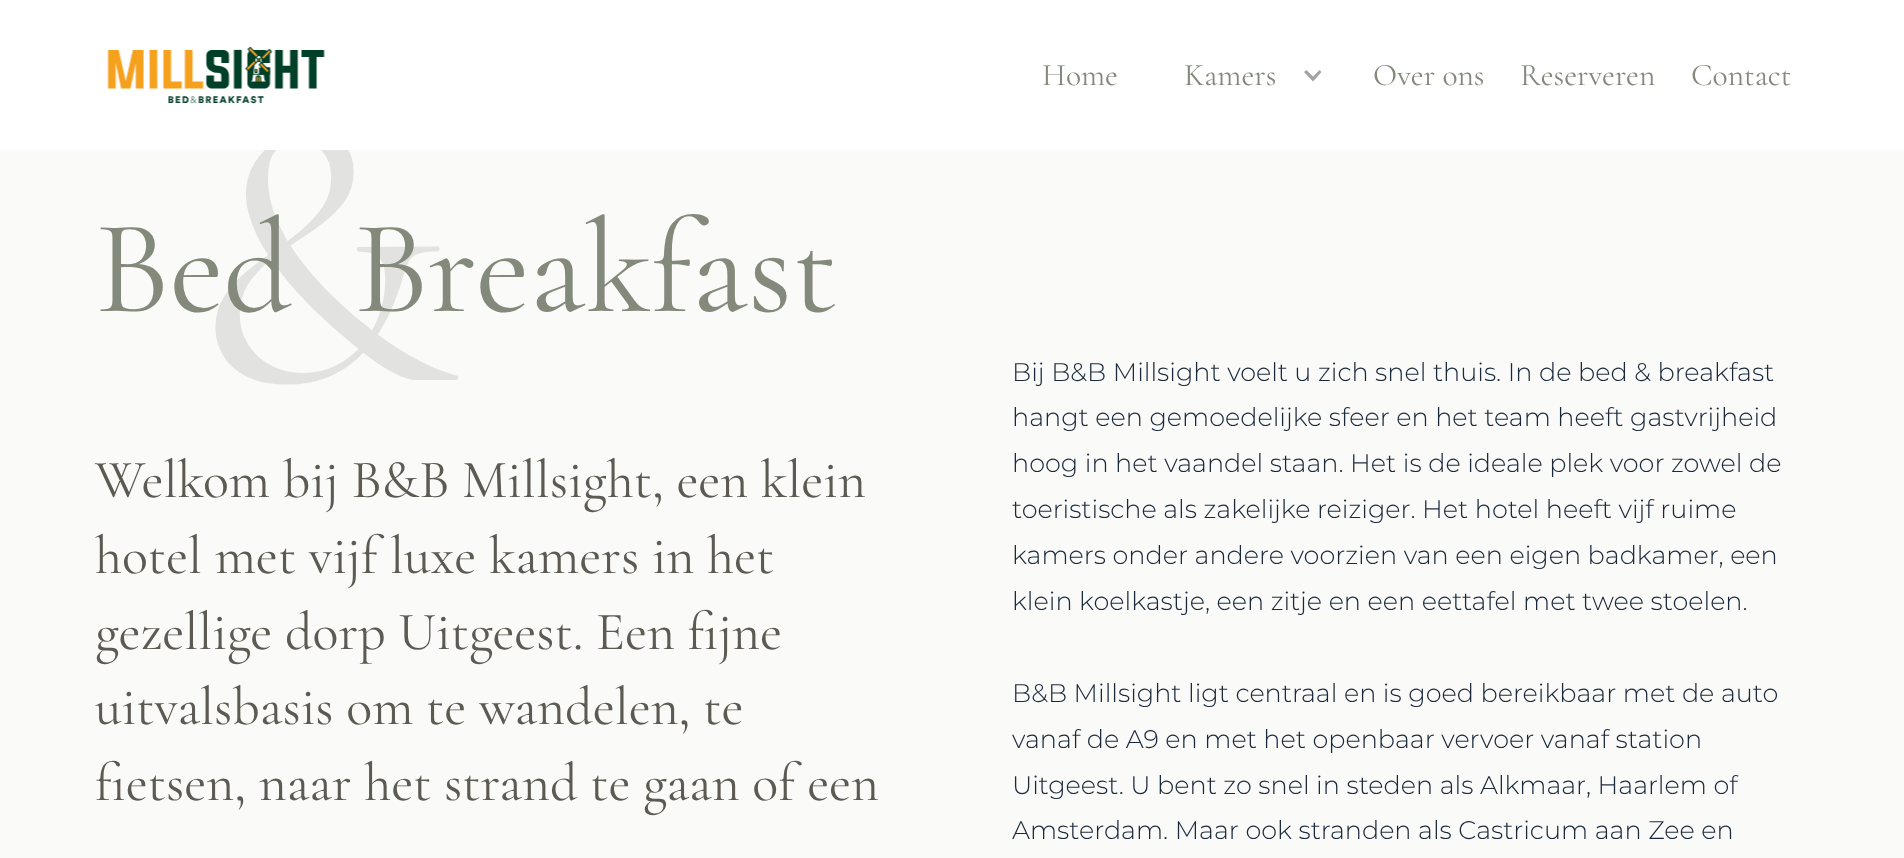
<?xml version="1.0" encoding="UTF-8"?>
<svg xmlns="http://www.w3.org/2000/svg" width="1904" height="858">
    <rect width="100%" height="100%" fill="#FAFAF8"/>
    <text x="191" y="380" font-family="Cormorant Garamond" font-size="381" font-weight="300" fill="#E2E2E0">&amp;</text>
    <rect x="0" y="0" width="1904" height="150" fill="#FFFFFF"/>
    <image x="107" y="46" width="218" height="58" href="img_01.png"/>
    <text x="1042" y="85" font-family="Cormorant Garamond" font-size="31.5" font-weight="300" fill="#838A7B">Home</text>
    <text x="1184" y="85" font-family="Cormorant Garamond" font-size="31.5" font-weight="300" fill="#838A7B">Kamers</text>
    <path d="M 1319.5 70 L 1313 76.5 L 1306.5 70 L 1304 72 L 1313 81.5 L 1321.5 72 Z" fill="#A4A4A4"/>
    <text x="1373" y="85" font-family="Cormorant Garamond" font-size="31.5" font-weight="300" fill="#838A7B">Over ons</text>
    <text x="1520" y="85" font-family="Cormorant Garamond" font-size="31.5" font-weight="300" fill="#838A7B">Reserveren</text>
    <text x="1691" y="85" font-family="Cormorant Garamond" font-size="31.5" font-weight="300" fill="#838A7B">Contact</text>
    <text x="95" y="311" font-family="Cormorant Garamond" font-size="133.5" font-weight="300" fill="#838A7B" xml:space="preserve">Bed  Breakfast</text>
    <text font-family="Cormorant Garamond" font-size="54" font-weight="300" fill="#5C5A53">
        <tspan x="95" y="497">Welkom bij B&amp;B Millsight, een klein</tspan>
        <tspan x="95" y="573">hotel met vijf luxe kamers in het</tspan>
        <tspan x="95" y="649">gezellige dorp Uitgeest. Een fijne</tspan>
        <tspan x="95" y="724">uitvalsbasis om te wandelen, te</tspan>
        <tspan x="95" y="800">fietsen, naar het strand te gaan of een</tspan>
    </text>
    <text font-family="Montserrat" font-size="25.5" font-weight="300" fill="#19283A">
        <tspan x="1012" y="381">Bij B&amp;B Millsight voelt u zich snel thuis. In de bed &amp; breakfast</tspan>
        <tspan x="1012" y="426">hangt een gemoedelijke sfeer en het team heeft gastvrijheid</tspan>
        <tspan x="1012" y="472">hoog in het vaandel staan. Het is de ideale plek voor zowel de</tspan>
        <tspan x="1012" y="518">toeristische als zakelijke reiziger. Het hotel heeft vijf ruime</tspan>
        <tspan x="1012" y="564">kamers onder andere voorzien van een eigen badkamer, een</tspan>
        <tspan x="1012" y="610">klein koelkastje, een zitje en een eettafel met twee stoelen.</tspan>
    </text>
    <text font-family="Montserrat" font-size="25.5" font-weight="300" fill="#19283A">
        <tspan x="1012" y="702">B&amp;B Millsight ligt centraal en is goed bereikbaar met de auto</tspan>
        <tspan x="1012" y="748">vanaf de A9 en met het openbaar vervoer vanaf station</tspan>
        <tspan x="1012" y="794">Uitgeest. U bent zo snel in steden als Alkmaar, Haarlem of</tspan>
        <tspan x="1012" y="839">Amsterdam. Maar ook stranden als Castricum aan Zee en</tspan>
    </text>
</svg>
